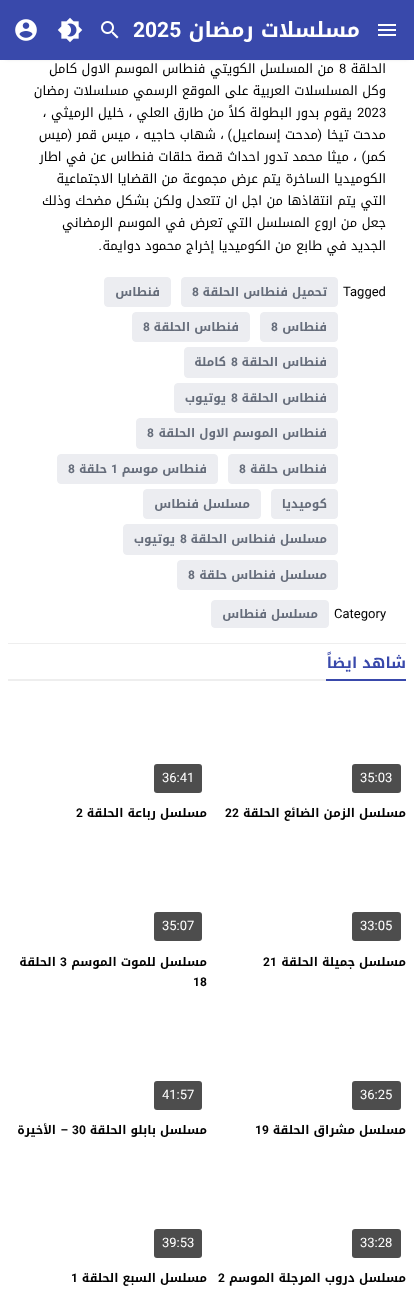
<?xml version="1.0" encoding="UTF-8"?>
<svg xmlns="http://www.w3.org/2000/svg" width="414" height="1298">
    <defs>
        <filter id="blur1" x="-50%" y="-200%" width="200%" height="500%"><feGaussianBlur stdDeviation="2.5"/></filter>
    </defs>
    <rect width="100%" height="100%" fill="#FFFFFF"/>
    <rect x="5" y="7" width="404" height="50" fill="#999999" filter="url(#blur1)"/>
    <rect x="0" y="0" width="414" height="60" fill="#3949AB"/>
    <image x="378" y="24" width="18" height="12" href="img_01.png"/>
    <text x="360" y="37" font-family="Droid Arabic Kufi" font-size="21" font-weight="700" direction="rtl" fill="#FFFFFF">مسلسلات رمضان</text>
    <text x="133" y="37" font-family="Roboto" font-size="21" font-weight="700" fill="#FFFFFF">2025</text>
    <image x="101" y="21" width="18" height="18" href="img_02.png"/>
    <image x="57" y="17" width="26" height="26" href="img_03.png"/>
    <image x="15" y="19" width="22" height="22" href="img_04.png"/>
    <rect x="8" y="643" width="398" height="1" fill="#EEEEEE"/>
    <text x="386" y="73" font-family="Droid Arabic Kufi" font-size="13" direction="rtl" fill="#000000">الحلقة</text>
    <text x="339" y="73" font-family="Roboto" font-size="13" fill="#000000">8</text>
    <text x="334" y="73" font-family="Droid Arabic Kufi" font-size="13" direction="rtl" fill="#000000">من المسلسل الكويتي فنطاس الموسم الاول كامل</text>
    <text x="386" y="95" font-family="Droid Arabic Kufi" font-size="13" direction="rtl" fill="#000000">وكل المسلسلات العربية على الموقع الرسمي مسلسلات رمضان</text>
    <text x="357" y="117" font-family="Roboto" font-size="13" fill="#000000">2023</text>
    <text x="352" y="117" font-family="Droid Arabic Kufi" font-size="13" direction="rtl" fill="#000000">يقوم بدور البطولة كلاً من طارق العلي ، خليل الرميثي ،</text>
    <text x="386" y="139" font-family="Droid Arabic Kufi" font-size="13" direction="rtl" fill="#000000">مدحت تيخا</text>
    <text x="322" y="139" font-family="Roboto" font-size="13" direction="rtl" fill="#000000">(</text>
    <text x="318" y="139" font-family="Droid Arabic Kufi" font-size="13" direction="rtl" fill="#000000">مدحت إسماعيل</text>
    <text x="232" y="139" font-family="Roboto" font-size="13" direction="rtl" fill="#000000">)</text>
    <text x="224" y="139" font-family="Droid Arabic Kufi" font-size="13" direction="rtl" fill="#000000">، شهاب حاجيه ، ميس قمر</text>
    <text x="72" y="139" font-family="Roboto" font-size="13" direction="rtl" fill="#000000">(</text>
    <text x="68" y="139" font-family="Droid Arabic Kufi" font-size="13" direction="rtl" fill="#000000">ميس</text>
    <text x="386" y="161" font-family="Droid Arabic Kufi" font-size="13" direction="rtl" fill="#000000">كمر</text>
    <text x="366" y="161" font-family="Roboto" font-size="13" direction="rtl" fill="#000000">)</text>
    <text x="357" y="161" font-family="Droid Arabic Kufi" font-size="13" direction="rtl" fill="#000000">، ميثا محمد تدور احداث قصة حلقات فنطاس عن في اطار</text>
    <text font-family="Droid Arabic Kufi" font-size="13" direction="rtl" fill="#000000">
        <tspan x="386" y="183">الكوميديا الساخرة يتم عرض مجموعة من القضايا الاجتماعية</tspan>
        <tspan x="386" y="205">التي يتم انتقاذها من اجل ان تتعدل ولكن بشكل مضحك وذلك</tspan>
        <tspan x="386" y="227">جعل من اروع المسلسل التي تعرض في الموسم الرمضاني</tspan>
        <tspan x="386" y="250">الجديد في طابع من الكوميديا إخراج محمود دوايمة</tspan>
    </text>
    <text x="102" y="250" font-family="Roboto" font-size="13" direction="rtl" fill="#000000">.</text>
    <text x="343" y="296" font-family="Roboto" font-size="13" fill="#000000">Tagged</text>
    <rect x="181.5" y="277.5" width="156" height="29" rx="3.5" fill="#ECEDF1" stroke="#ECEDF1"/>
    <text x="327" y="296" font-family="Droid Arabic Kufi" font-size="12" font-weight="700" direction="rtl" fill="#656C7A">تحميل فنطاس الحلقة</text>
    <text x="192" y="296" font-family="Roboto" font-size="12" font-weight="700" fill="#656C7A">8</text>
    <rect x="104.5" y="277.5" width="66" height="29" rx="3.5" fill="#ECEDF1" stroke="#ECEDF1"/>
    <text x="160" y="296" font-family="Droid Arabic Kufi" font-size="12" font-weight="700" direction="rtl" fill="#656C7A">فنطاس</text>
    <rect x="260.5" y="312.5" width="77" height="29" rx="3.5" fill="#ECEDF1" stroke="#ECEDF1"/>
    <text x="327" y="331" font-family="Droid Arabic Kufi" font-size="12" font-weight="700" direction="rtl" fill="#656C7A">فنطاس</text>
    <text x="271" y="331" font-family="Roboto" font-size="12" font-weight="700" fill="#656C7A">8</text>
    <rect x="132.5" y="312.5" width="117" height="29" rx="3.5" fill="#ECEDF1" stroke="#ECEDF1"/>
    <text x="239" y="331" font-family="Droid Arabic Kufi" font-size="12" font-weight="700" direction="rtl" fill="#656C7A">فنطاس الحلقة</text>
    <text x="143" y="331" font-family="Roboto" font-size="12" font-weight="700" fill="#656C7A">8</text>
    <rect x="184.5" y="347.5" width="153" height="30" rx="3.5" fill="#ECEDF1" stroke="#ECEDF1"/>
    <text x="327" y="366" font-family="Droid Arabic Kufi" font-size="12" font-weight="700" direction="rtl" fill="#656C7A">فنطاس الحلقة</text>
    <text x="231" y="366" font-family="Roboto" font-size="12" font-weight="700" fill="#656C7A">8</text>
    <text x="226" y="366" font-family="Droid Arabic Kufi" font-size="12" font-weight="700" direction="rtl" fill="#656C7A">كاملة</text>
    <rect x="174.5" y="383.5" width="163" height="29" rx="3.5" fill="#ECEDF1" stroke="#ECEDF1"/>
    <text x="327" y="402" font-family="Droid Arabic Kufi" font-size="12" font-weight="700" direction="rtl" fill="#656C7A">فنطاس الحلقة</text>
    <text x="231" y="402" font-family="Roboto" font-size="12" font-weight="700" fill="#656C7A">8</text>
    <text x="226" y="402" font-family="Droid Arabic Kufi" font-size="12" font-weight="700" direction="rtl" fill="#656C7A">يوتيوب</text>
    <rect x="136.5" y="418.5" width="201" height="30" rx="3.5" fill="#ECEDF1" stroke="#ECEDF1"/>
    <text x="327" y="437" font-family="Droid Arabic Kufi" font-size="12" font-weight="700" direction="rtl" fill="#656C7A">فنطاس الموسم الاول الحلقة</text>
    <text x="147" y="437" font-family="Roboto" font-size="12" font-weight="700" fill="#656C7A">8</text>
    <rect x="228.5" y="454.5" width="109" height="29" rx="3.5" fill="#ECEDF1" stroke="#ECEDF1"/>
    <text x="327" y="473" font-family="Droid Arabic Kufi" font-size="12" font-weight="700" direction="rtl" fill="#656C7A">فنطاس حلقة</text>
    <text x="239" y="473" font-family="Roboto" font-size="12" font-weight="700" fill="#656C7A">8</text>
    <rect x="57.5" y="454.5" width="160" height="29" rx="3.5" fill="#ECEDF1" stroke="#ECEDF1"/>
    <text x="207" y="473" font-family="Droid Arabic Kufi" font-size="12" font-weight="700" direction="rtl" fill="#656C7A">فنطاس موسم</text>
    <text x="111" y="473" font-family="Roboto" font-size="12" font-weight="700" fill="#656C7A">1</text>
    <text x="107" y="473" font-family="Droid Arabic Kufi" font-size="12" font-weight="700" direction="rtl" fill="#656C7A">حلقة</text>
    <text x="68" y="473" font-family="Roboto" font-size="12" font-weight="700" fill="#656C7A">8</text>
    <rect x="271.5" y="489.5" width="66" height="29" rx="3.5" fill="#ECEDF1" stroke="#ECEDF1"/>
    <text x="327" y="508" font-family="Droid Arabic Kufi" font-size="12" font-weight="700" direction="rtl" fill="#656C7A">كوميديا</text>
    <rect x="143.5" y="489.5" width="117" height="29" rx="3.5" fill="#ECEDF1" stroke="#ECEDF1"/>
    <text x="250" y="508" font-family="Droid Arabic Kufi" font-size="12" font-weight="700" direction="rtl" fill="#656C7A">مسلسل فنطاس</text>
    <rect x="123.5" y="524.5" width="214" height="30" rx="3.5" fill="#ECEDF1" stroke="#ECEDF1"/>
    <text x="327" y="543" font-family="Droid Arabic Kufi" font-size="12" font-weight="700" direction="rtl" fill="#656C7A">مسلسل فنطاس الحلقة</text>
    <text x="180" y="543" font-family="Roboto" font-size="12" font-weight="700" fill="#656C7A">8</text>
    <text x="175" y="543" font-family="Droid Arabic Kufi" font-size="12" font-weight="700" direction="rtl" fill="#656C7A">يوتيوب</text>
    <rect x="177.5" y="560.5" width="160" height="29" rx="3.5" fill="#ECEDF1" stroke="#ECEDF1"/>
    <text x="327" y="579" font-family="Droid Arabic Kufi" font-size="12" font-weight="700" direction="rtl" fill="#656C7A">مسلسل فنطاس حلقة</text>
    <text x="188" y="579" font-family="Roboto" font-size="12" font-weight="700" fill="#656C7A">8</text>
    <text x="334" y="618" font-family="Roboto" font-size="13" fill="#000000">Category</text>
    <rect x="211.5" y="600.5" width="117" height="27" rx="3.5" fill="#ECEDF1" stroke="#ECEDF1"/>
    <text x="318" y="618" font-family="Droid Arabic Kufi" font-size="12" font-weight="700" direction="rtl" fill="#656C7A">مسلسل فنطاس</text>
    <rect x="8" y="679" width="318" height="2" fill="#EEEEEE"/>
    <rect x="326" y="679" width="80" height="2" fill="#3949AB"/>
    <text x="406" y="668" font-family="Droid Arabic Kufi" font-size="15" font-weight="700" direction="rtl" fill="#3949AB">شاهد ايضاً</text>
    <rect x="352" y="764" width="49" height="29" rx="3" fill="#4D4D4D"/>
    <text x="360" y="782" font-family="Roboto" font-size="13" fill="#FFFFFF">35:03</text>
    <text x="406" y="817" font-family="Droid Arabic Kufi" font-size="12" font-weight="700" direction="rtl" fill="#000000">مسلسل الزمن الضائع الحلقة</text>
    <text x="225" y="817" font-family="Roboto" font-size="12" font-weight="700" fill="#000000">22</text>
    <rect x="154" y="764" width="48" height="29" rx="3" fill="#4D4D4D"/>
    <text x="162" y="782" font-family="Roboto" font-size="13" fill="#FFFFFF">36:41</text>
    <text x="207" y="817" font-family="Droid Arabic Kufi" font-size="12" font-weight="700" direction="rtl" fill="#000000">مسلسل رباعة الحلقة</text>
    <text x="76" y="817" font-family="Roboto" font-size="12" font-weight="700" fill="#000000">2</text>
    <rect x="352" y="912" width="49" height="29" rx="3" fill="#4D4D4D"/>
    <text x="360" y="930" font-family="Roboto" font-size="13" fill="#FFFFFF">33:05</text>
    <text x="406" y="966" font-family="Droid Arabic Kufi" font-size="12" font-weight="700" direction="rtl" fill="#000000">مسلسل جميلة الحلقة</text>
    <text x="263" y="966" font-family="Roboto" font-size="12" font-weight="700" fill="#000000">21</text>
    <rect x="154" y="912" width="48" height="29" rx="3" fill="#4D4D4D"/>
    <text x="162" y="930" font-family="Roboto" font-size="13" fill="#FFFFFF">35:07</text>
    <text x="207" y="966" font-family="Droid Arabic Kufi" font-size="12" font-weight="700" direction="rtl" fill="#000000">مسلسل للموت الموسم</text>
    <text x="60" y="966" font-family="Roboto" font-size="12" font-weight="700" fill="#000000">3</text>
    <text x="56" y="966" font-family="Droid Arabic Kufi" font-size="12" font-weight="700" direction="rtl" fill="#000000">الحلقة</text>
    <text x="193" y="986" font-family="Roboto" font-size="12" font-weight="700" fill="#000000">18</text>
    <rect x="352" y="1081" width="49" height="29" rx="3" fill="#4D4D4D"/>
    <text x="360" y="1099" font-family="Roboto" font-size="13" fill="#FFFFFF">36:25</text>
    <text x="406" y="1134" font-family="Droid Arabic Kufi" font-size="12" font-weight="700" direction="rtl" fill="#000000">مسلسل مشراق الحلقة</text>
    <text x="255" y="1134" font-family="Roboto" font-size="12" font-weight="700" fill="#000000">19</text>
    <rect x="154" y="1081" width="48" height="29" rx="3" fill="#4D4D4D"/>
    <text x="162" y="1099" font-family="Roboto" font-size="13" fill="#FFFFFF">41:57</text>
    <text x="207" y="1134" font-family="Droid Arabic Kufi" font-size="12" font-weight="700" direction="rtl" fill="#000000">مسلسل بابلو الحلقة</text>
    <text x="72" y="1134" font-family="Roboto" font-size="12" font-weight="700" fill="#000000">30</text>
    <text x="68" y="1134" font-family="Roboto" font-size="12" font-weight="700" direction="rtl" fill="#000000">–</text>
    <text x="56" y="1134" font-family="Droid Arabic Kufi" font-size="12" font-weight="700" direction="rtl" fill="#000000">الأخيرة</text>
    <rect x="352" y="1229" width="49" height="29" rx="3" fill="#4D4D4D"/>
    <text x="360" y="1247" font-family="Roboto" font-size="13" fill="#FFFFFF">33:28</text>
    <text x="406" y="1282" font-family="Droid Arabic Kufi" font-size="12" font-weight="700" direction="rtl" fill="#000000">مسلسل دروب المرجلة الموسم</text>
    <text x="218" y="1282" font-family="Roboto" font-size="12" font-weight="700" fill="#000000">2</text>
    <rect x="154" y="1229" width="48" height="29" rx="3" fill="#4D4D4D"/>
    <text x="162" y="1247" font-family="Roboto" font-size="13" fill="#FFFFFF">39:53</text>
    <text x="207" y="1282" font-family="Droid Arabic Kufi" font-size="12" font-weight="700" direction="rtl" fill="#000000">مسلسل السبع الحلقة</text>
    <text x="71" y="1282" font-family="Roboto" font-size="12" font-weight="700" fill="#000000">1</text>
</svg>
